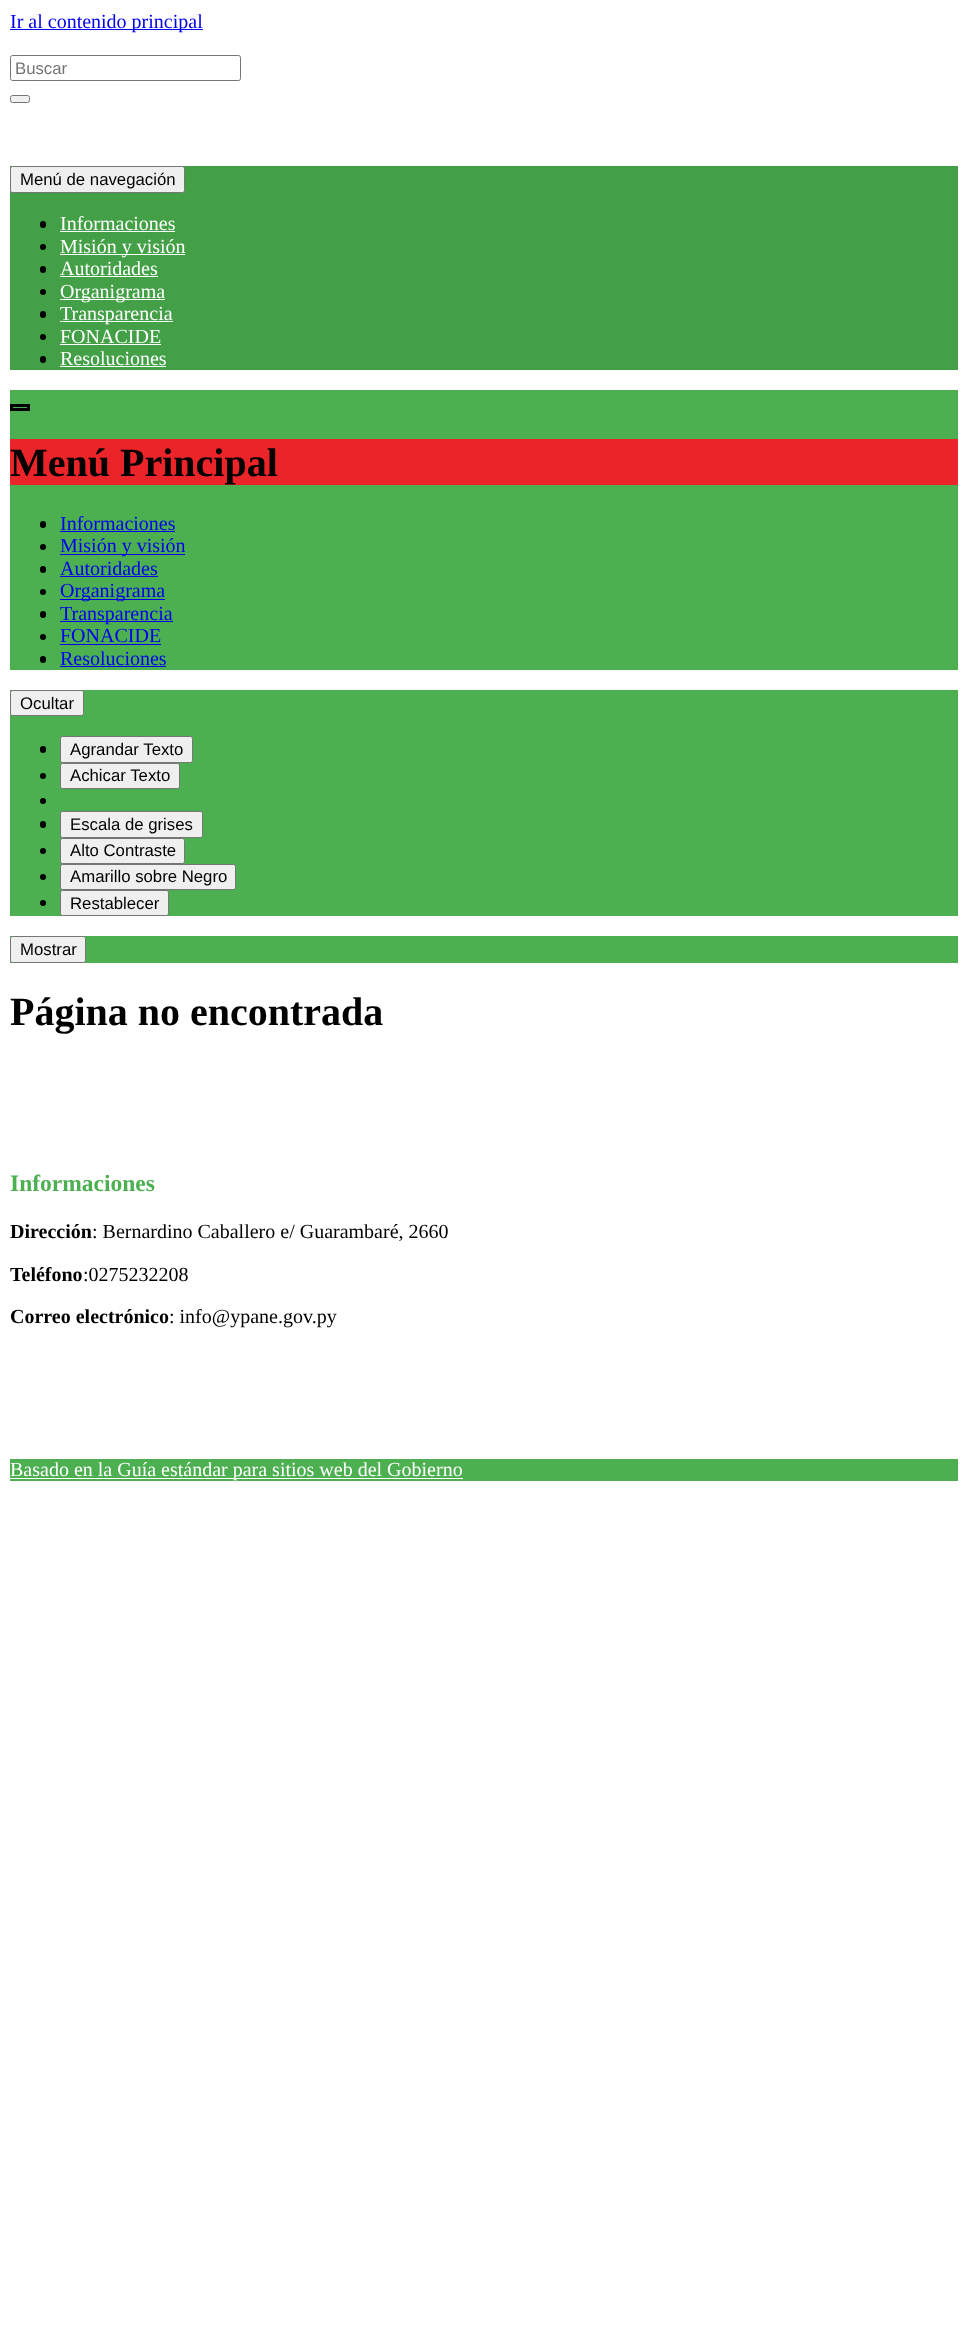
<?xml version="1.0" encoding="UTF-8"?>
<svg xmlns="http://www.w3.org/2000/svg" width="967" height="2331">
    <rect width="100%" height="100%" fill="#FFFFFF"/>
    <rect x="10" y="29" width="193" height="1" fill="#0000EE"/>
    <text x="10" y="28" font-family="Liberation Serif" font-size="20" fill="#0000EE">Ir al contenido principal</text>
    <rect x="10.5" y="55.5" width="230" height="25" rx="2" fill="none" stroke="#767676"/>
    <text x="15" y="74" font-family="Liberation Sans" font-size="16.75" fill="#757575">Buscar</text>
    <rect x="10.5" y="95.5" width="19" height="7" rx="2" fill="#EFEFEF" stroke="#767676"/>
    <rect x="10" y="166" width="948" height="204" fill="#43A047"/>
    <rect x="10.5" y="166.5" width="174" height="26" rx="2" fill="#EFEFEF" stroke="#767676"/>
    <text x="20" y="185" font-family="Liberation Sans" font-size="16.75" fill="#000000">Menú de navegación</text>
    <rect x="40" y="221" width="6" height="7" rx="3" fill="#000000"/>
    <text x="60" y="230" font-family="Liberation Serif" font-size="20" fill="#FFFFFF">Informaciones</text>
    <rect x="60" y="231" width="115" height="1" fill="#FFFFFF"/>
    <circle cx="43" cy="247" r="3" fill="#000000"/>
    <rect x="60" y="254" width="125" height="1" fill="#FFFFFF"/>
    <text x="60" y="253" font-family="Liberation Serif" font-size="20" fill="#FFFFFF">Misión y visión</text>
    <rect x="40" y="266" width="6" height="7" rx="3" fill="#000000"/>
    <text x="60" y="275" font-family="Liberation Serif" font-size="20" fill="#FFFFFF">Autoridades</text>
    <rect x="60" y="276" width="98" height="1" fill="#FFFFFF"/>
    <circle cx="43" cy="292" r="3" fill="#000000"/>
    <rect x="60" y="299" width="105" height="1" fill="#FFFFFF"/>
    <text x="60" y="298" font-family="Liberation Serif" font-size="20" fill="#FFFFFF">Organigrama</text>
    <rect x="40" y="311" width="6" height="7" rx="3" fill="#000000"/>
    <rect x="60" y="321" width="113" height="1" fill="#FFFFFF"/>
    <text x="60" y="320" font-family="Liberation Serif" font-size="20" fill="#FFFFFF">Transparencia</text>
    <circle cx="43" cy="337" r="3" fill="#000000"/>
    <text x="60" y="343" font-family="Liberation Serif" font-size="20" fill="#FFFFFF">FONACIDE</text>
    <rect x="60" y="344" width="101" height="1" fill="#FFFFFF"/>
    <rect x="40" y="356" width="6" height="7" rx="3" fill="#000000"/>
    <text x="60" y="365" font-family="Liberation Serif" font-size="20" fill="#FFFFFF">Resoluciones</text>
    <rect x="60" y="366" width="106" height="1" fill="#FFFFFF"/>
    <rect x="10" y="390" width="948" height="280" fill="#4CAF50"/>
    <rect x="11.5" y="405.5" width="17" height="4" fill="none" stroke="#000000" stroke-width="3"/>
    <rect x="10" y="439" width="948" height="46" fill="#EA2428"/>
    <text x="10" y="476" font-family="Liberation Serif" font-size="40" font-weight="700" fill="#000000">Menú Principal</text>
    <rect x="40" y="521" width="6" height="7" rx="3" fill="#000000"/>
    <text x="60" y="530" font-family="Liberation Serif" font-size="20" fill="#0000EE">Informaciones</text>
    <rect x="60" y="531" width="115" height="1" fill="#0000EE"/>
    <circle cx="43" cy="547" r="3" fill="#000000"/>
    <rect x="60" y="554" width="125" height="1" fill="#0000EE"/>
    <text x="60" y="552" font-family="Liberation Serif" font-size="20" fill="#0000EE">Misión y visión</text>
    <rect x="40" y="566" width="6" height="7" rx="3" fill="#000000"/>
    <text x="60" y="575" font-family="Liberation Serif" font-size="20" fill="#0000EE">Autoridades</text>
    <rect x="60" y="576" width="98" height="1" fill="#0000EE"/>
    <circle cx="43" cy="592" r="3" fill="#000000"/>
    <rect x="60" y="599" width="105" height="1" fill="#0000EE"/>
    <text x="60" y="597" font-family="Liberation Serif" font-size="20" fill="#0000EE">Organigrama</text>
    <rect x="40" y="611" width="6" height="7" rx="3" fill="#000000"/>
    <rect x="60" y="621" width="113" height="1" fill="#0000EE"/>
    <text x="60" y="620" font-family="Liberation Serif" font-size="20" fill="#0000EE">Transparencia</text>
    <circle cx="43" cy="637" r="3" fill="#000000"/>
    <text x="60" y="642" font-family="Liberation Serif" font-size="20" fill="#0000EE">FONACIDE</text>
    <rect x="60" y="644" width="101" height="1" fill="#0000EE"/>
    <rect x="40" y="656" width="6" height="7" rx="3" fill="#000000"/>
    <text x="60" y="665" font-family="Liberation Serif" font-size="20" fill="#0000EE">Resoluciones</text>
    <rect x="60" y="666" width="106" height="1" fill="#0000EE"/>
    <rect x="10" y="690" width="948" height="226" fill="#4CAF50"/>
    <rect x="10.5" y="690.5" width="73" height="25" rx="2" fill="#EFEFEF" stroke="#767676"/>
    <text x="20" y="709" font-family="Liberation Sans" font-size="16.75" fill="#000000">Ocultar</text>
    <rect x="40" y="746" width="6" height="7" rx="3" fill="#000000"/>
    <rect x="60.5" y="736.5" width="132" height="26" rx="2" fill="#EFEFEF" stroke="#767676"/>
    <text x="70" y="755" font-family="Liberation Sans" font-size="16.75" fill="#000000">Agrandar Texto</text>
    <circle cx="43" cy="776" r="3" fill="#000000"/>
    <rect x="60.5" y="763.5" width="119" height="25" rx="2" fill="#EFEFEF" stroke="#767676"/>
    <text x="70" y="781" font-family="Liberation Sans" font-size="16.75" fill="#000000">Achicar Texto</text>
    <circle cx="43" cy="801" r="3" fill="#000000"/>
    <rect x="40" y="821" width="6" height="7" rx="3" fill="#000000"/>
    <rect x="60.5" y="811.5" width="142" height="26" rx="2" fill="#EFEFEF" stroke="#767676"/>
    <text x="70" y="830" font-family="Liberation Sans" font-size="16.75" fill="#000000">Escala de grises</text>
    <circle cx="43" cy="851" r="3" fill="#000000"/>
    <rect x="60.5" y="838.5" width="124" height="25" rx="2" fill="#EFEFEF" stroke="#767676"/>
    <text x="70" y="856" font-family="Liberation Sans" font-size="16.75" fill="#000000">Alto Contraste</text>
    <circle cx="43" cy="877" r="3" fill="#000000"/>
    <rect x="60.5" y="864.5" width="175" height="25" rx="2" fill="#EFEFEF" stroke="#767676"/>
    <text x="70" y="882" font-family="Liberation Sans" font-size="16.75" fill="#000000">Amarillo sobre Negro</text>
    <circle cx="43" cy="903" r="3" fill="#000000"/>
    <rect x="60.5" y="890.5" width="108" height="25" rx="2" fill="#EFEFEF" stroke="#767676"/>
    <text x="70" y="909" font-family="Liberation Sans" font-size="16.75" fill="#000000">Restablecer</text>
    <rect x="10" y="936" width="948" height="27" fill="#4CAF50"/>
    <rect x="10.5" y="936.5" width="75" height="26" rx="2" fill="#EFEFEF" stroke="#767676"/>
    <text x="20" y="955" font-family="Liberation Sans" font-size="16.75" fill="#000000">Mostrar</text>
    <text x="10" y="1025" font-family="Liberation Serif" font-size="40" font-weight="700" fill="#000000">Página no encontrada</text>
    <text x="10" y="1191" font-family="Liberation Serif" font-size="23.5" font-weight="700" fill="#4CAF50">Informaciones</text>
    <text x="10" y="1238" font-family="Liberation Serif" font-size="20" font-weight="700" fill="#000000">Dirección</text>
    <text x="92" y="1238" font-family="Liberation Serif" font-size="20" fill="#000000">: Bernardino Caballero e/ Guarambaré, 2660</text>
    <text x="10" y="1281" font-family="Liberation Serif" font-size="20" font-weight="700" fill="#000000">Teléfono</text>
    <text x="83" y="1281" font-family="Liberation Serif" font-size="20" fill="#000000">:0275232208</text>
    <text x="10" y="1323" font-family="Liberation Serif" font-size="20" font-weight="700" fill="#000000">Correo electrónico</text>
    <text x="169" y="1323" font-family="Liberation Serif" font-size="20" fill="#000000">: info@ypane.gov.py</text>
    <rect x="10" y="1459" width="948" height="22" fill="#4CAF50"/>
    <rect x="10" y="1478" width="453" height="1" fill="#FFFFFF"/>
    <text x="10" y="1476" font-family="Liberation Serif" font-size="20" fill="#FFFFFF">Basado en la Guía estándar para sitios web del Gobierno</text>
</svg>
